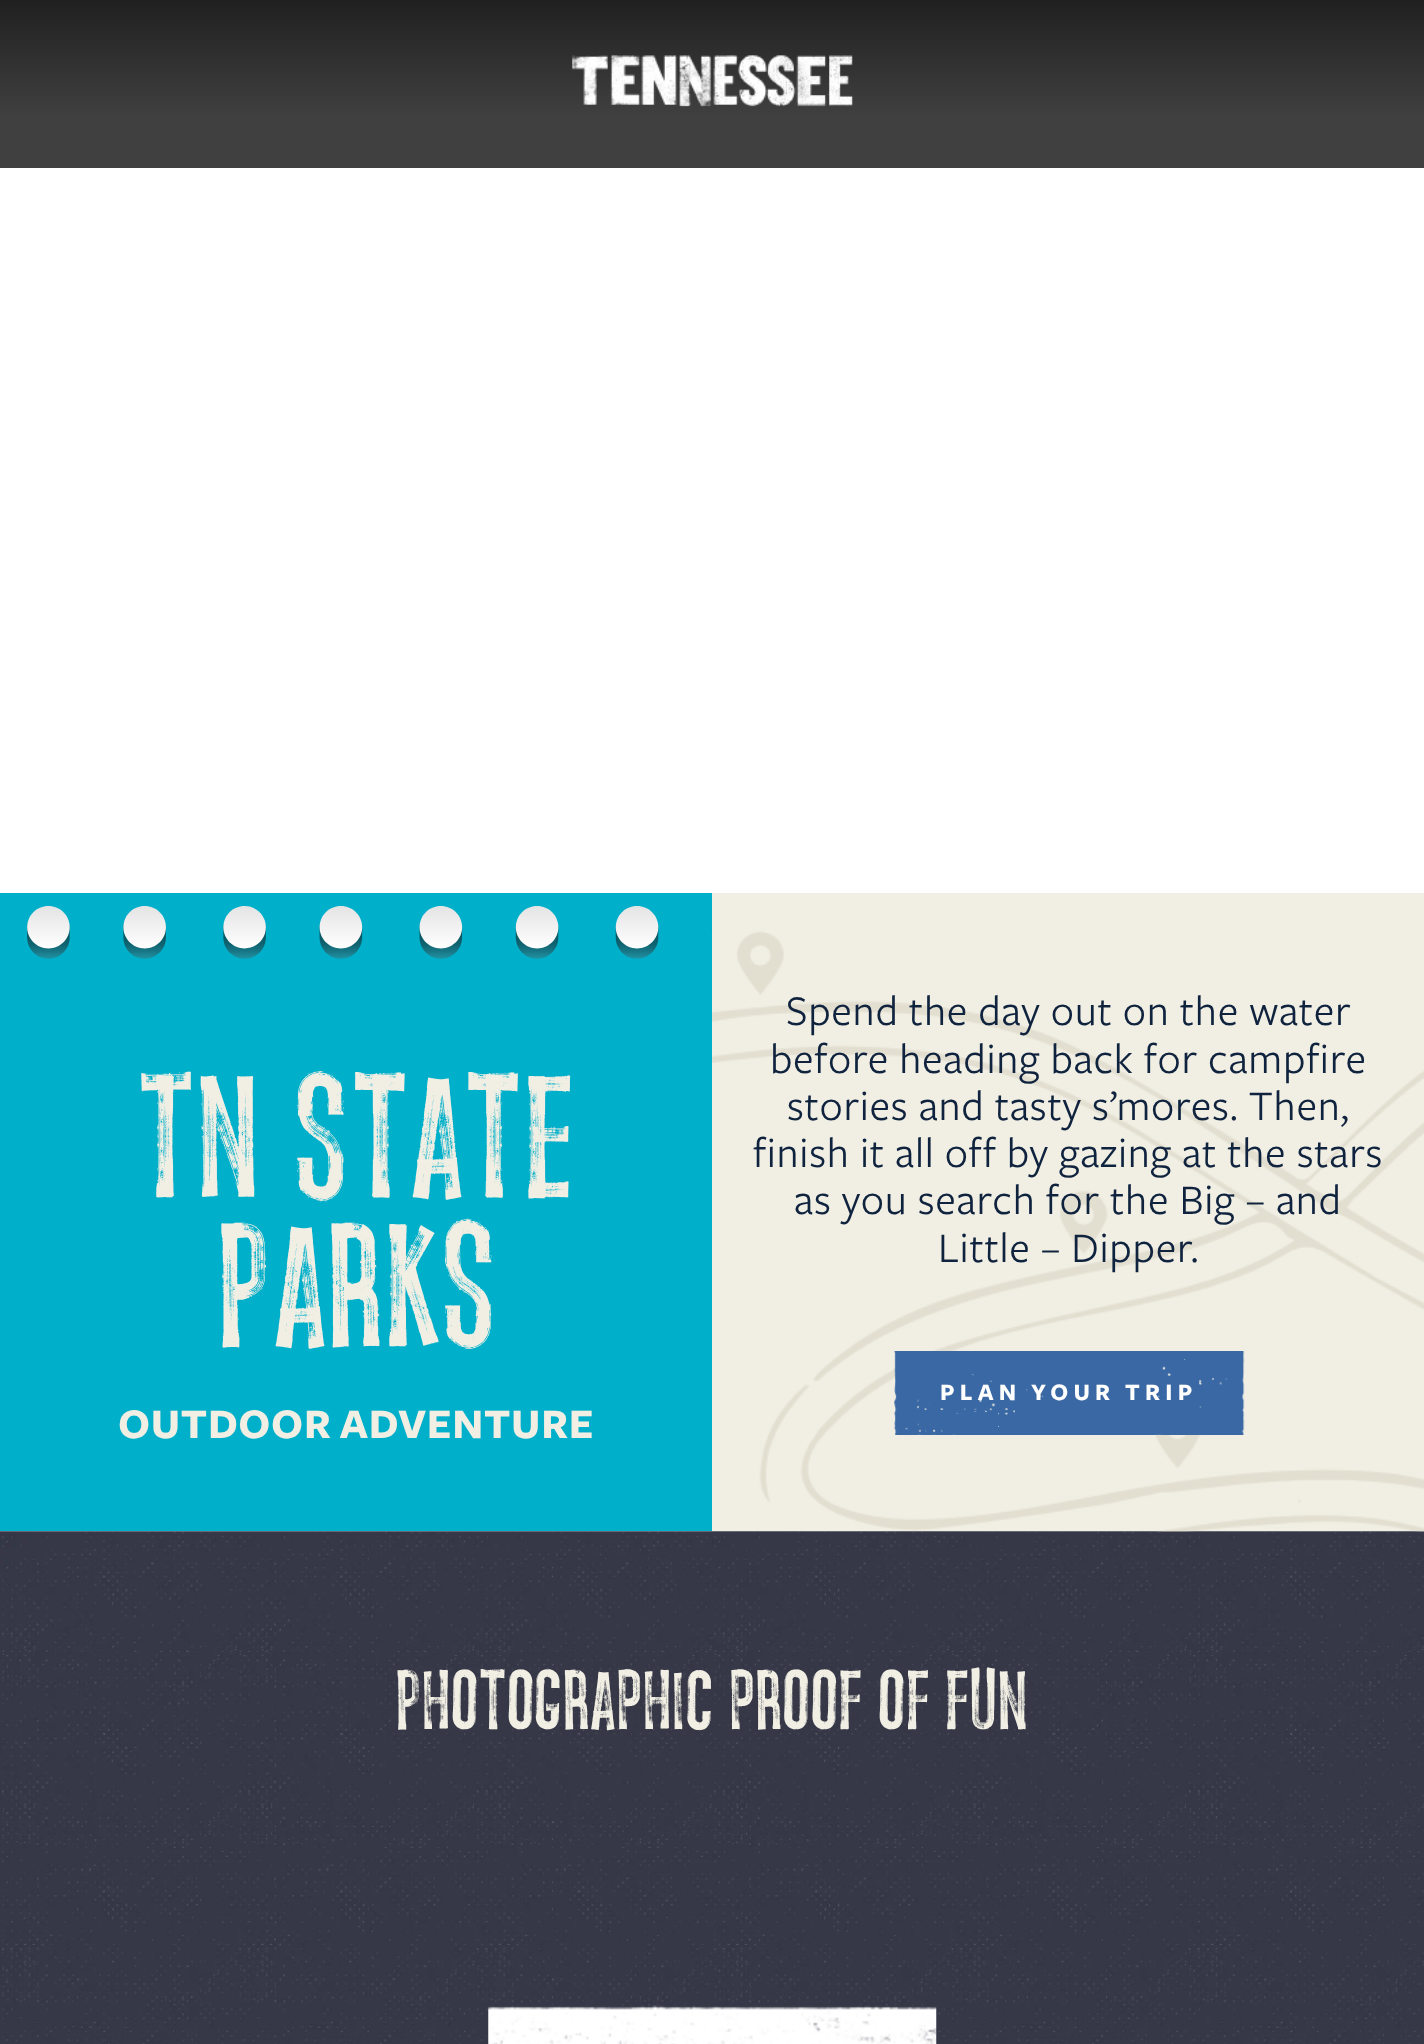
<?xml version="1.0" encoding="UTF-8"?>
<svg xmlns="http://www.w3.org/2000/svg" width="1424" height="2044">
    <defs>
        <linearGradient id="g1" gradientUnits="userSpaceOnUse" x1="712" y1="0" x2="712" y2="168"><stop offset="0" stop-color="#202020"/><stop offset="0.7" stop-color="#404040"/><stop offset="1" stop-color="#404040"/></linearGradient>
    </defs>
    <rect width="100%" height="100%" fill="#FFFFFF"/>
    <rect x="0" y="0" width="1424" height="168" fill="url(#g1)"/>
    <image x="572" y="55" width="281" height="52" href="img_01.png"/>
    <image x="590" y="1531" width="1" height="1" href="img_02.png"/>
    <rect x="0" y="893" width="712" height="638" fill="#00AFCA"/>
    <image x="27" y="906" width="685" height="53" href="img_03.png"/>
    <text x="137" y="1197" font-family="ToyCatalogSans" font-size="175" letter-spacing="0.7" fill="#F1EFE4">TN State</text>
    <text x="216" y="1346" font-family="ToyCatalogSans" font-size="175" letter-spacing="0.7" fill="#F1EFE4">Parks</text>
    <text x="118" y="1438" font-family="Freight" font-size="43.75" font-weight="700" letter-spacing="0.7" fill="#F1EFE4">OUTDOOR ADVENTURE</text>
    <rect x="712" y="893" width="712" height="638" fill="#F1EFE4"/>
    <image x="0" y="1531" width="1424" height="513" href="img_06.png"/>
    <image x="712" y="931" width="712" height="601" href="img_04.png"/>
    <text x="786" y="1025" word-spacing="3.5" font-family="Freight" font-size="43.75" letter-spacing="0.7" fill="#10233E">Spend the day out on the water</text>
    <text x="770" y="1073" word-spacing="3.5" font-family="Freight" font-size="43.75" letter-spacing="0.7" fill="#10233E">before heading back for campfire</text>
    <text x="787" y="1120" word-spacing="3.5" font-family="Freight" font-size="43.75" letter-spacing="0.7" fill="#10233E">stories and tasty s’mores. Then,</text>
    <text x="753" y="1167" word-spacing="3.5" font-family="Freight" font-size="43.75" letter-spacing="0.7" fill="#10233E">finish it all off by gazing at the stars</text>
    <text x="794" y="1214" word-spacing="3.5" font-family="Freight" font-size="43.75" letter-spacing="0.7" fill="#10233E">as you search for the Big – and</text>
    <text x="938" y="1262" word-spacing="3.5" font-family="Freight" font-size="43.75" letter-spacing="0.7" fill="#10233E">Little – Dipper.</text>
    <image x="894" y="1351" width="351" height="84" href="img_05.png"/>
    <text x="940" y="1400" font-family="Freight" font-size="24.5" font-weight="700" letter-spacing="5.25" fill="#FFFFFF">PLAN YOUR TRIP</text>
    <text x="395" y="1729" font-family="ToyCatalogSans" font-size="84" fill="#F1EFE4">Photographic proof of fun</text>
    <image x="488" y="2005" width="449" height="39" href="img_07.png"/>
</svg>
